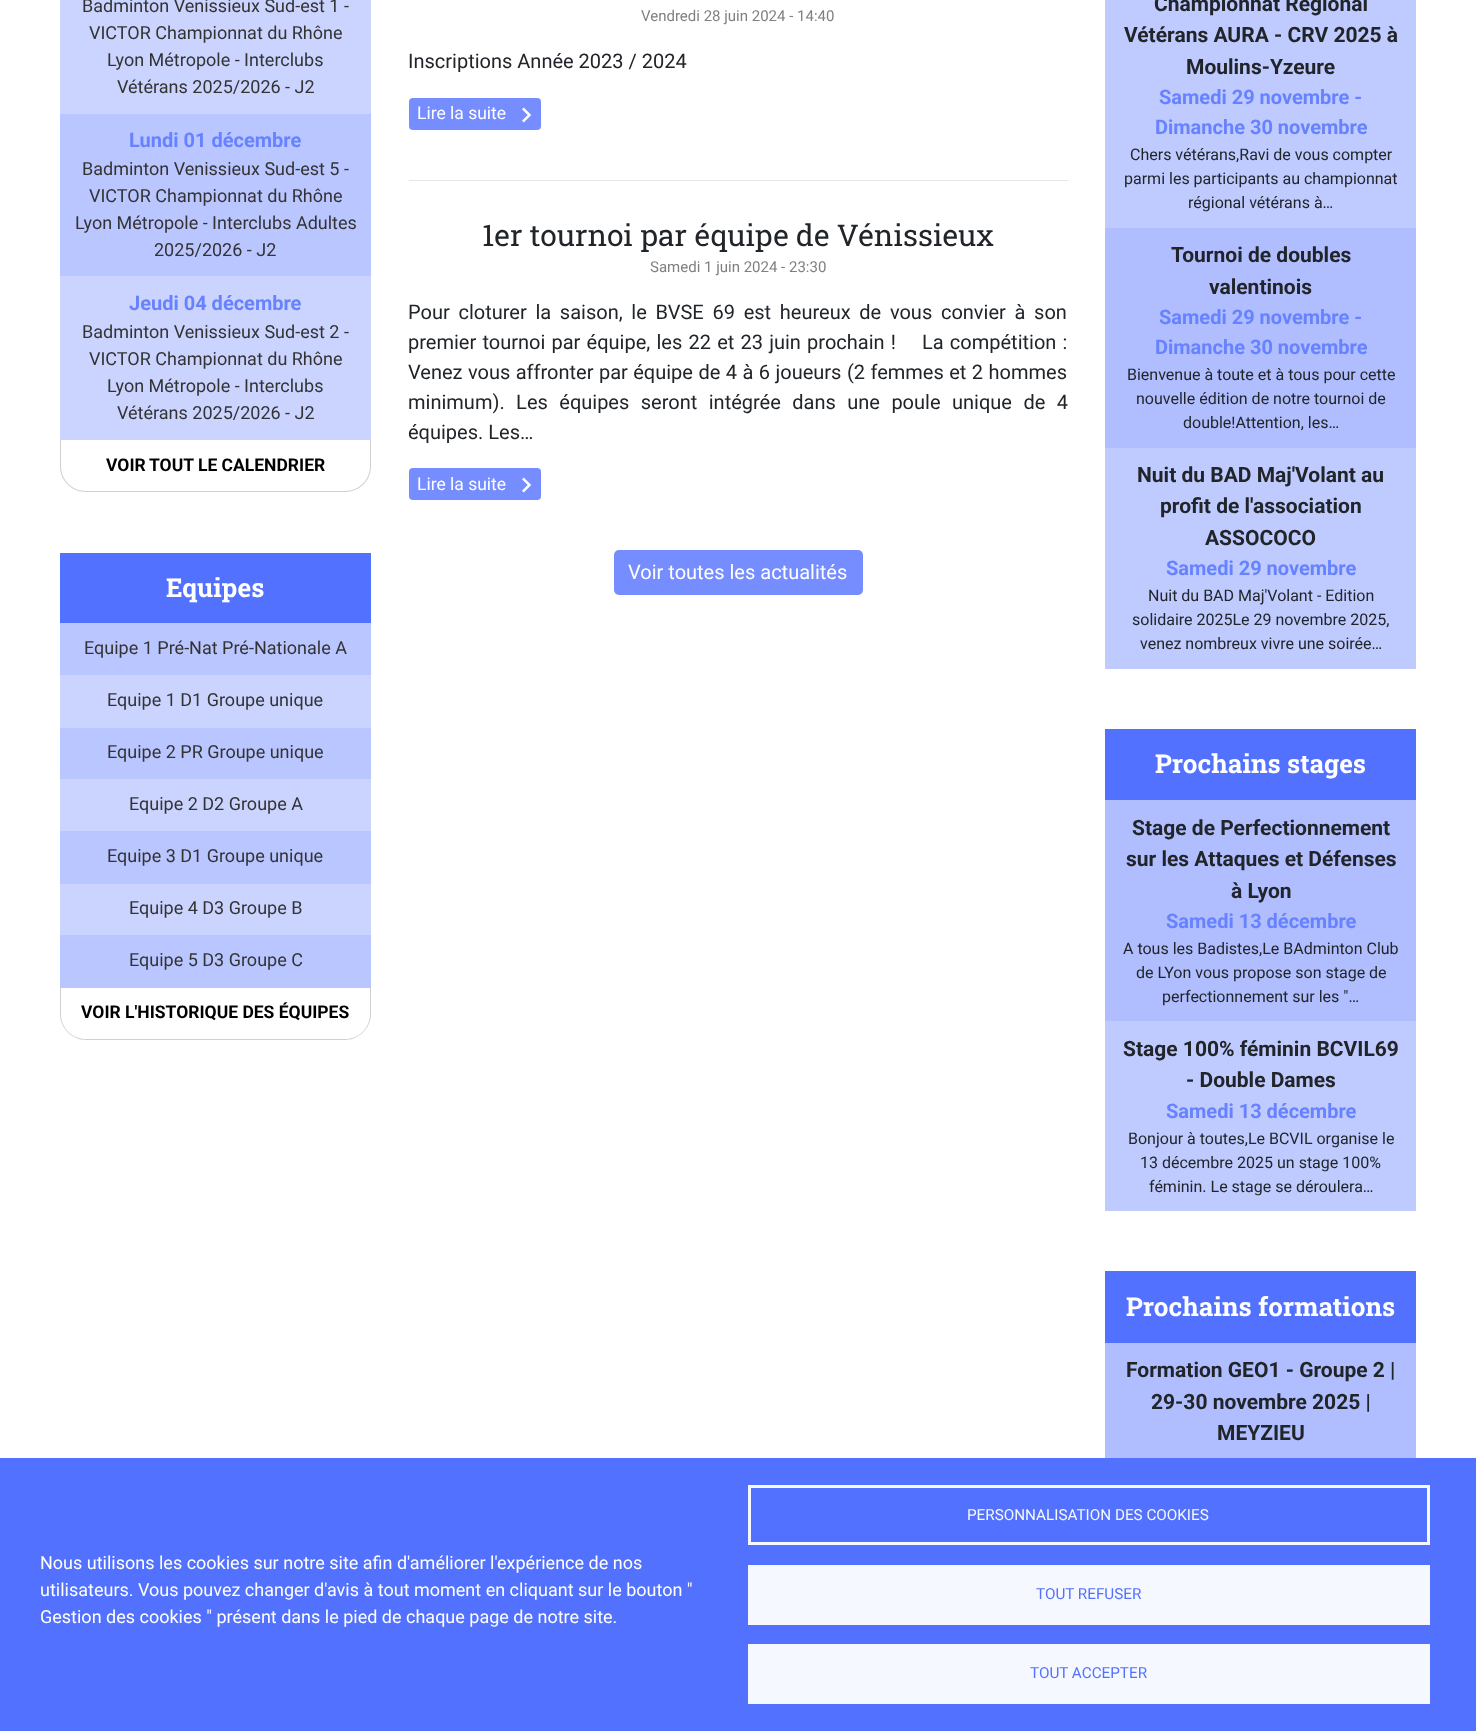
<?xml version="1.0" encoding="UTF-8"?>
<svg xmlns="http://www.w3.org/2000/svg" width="1476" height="1731">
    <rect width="100%" height="100%" fill="#FFFFFF"/>
    <rect x="60" y="0" width="311" height="114" fill="#CBD4FF"/>
    <text x="82" y="12" font-family="Roboto" font-size="18" fill="#333333">Badminton Venissieux Sud-est 1 -</text>
    <text x="89" y="39" font-family="Roboto" font-size="18" fill="#333333">VICTOR Championnat du Rhône</text>
    <text x="107" y="66" font-family="Roboto" font-size="18" fill="#333333">Lyon Métropole - Interclubs</text>
    <text x="117" y="93" font-family="Roboto" font-size="18" fill="#333333">Vétérans 2025/2026 - J2</text>
    <rect x="60" y="114" width="311" height="162" fill="#BAC6FF"/>
    <text x="129" y="147" font-family="Roboto" font-size="20" font-weight="700" fill="#6782FF">Lundi 01 décembre</text>
    <text x="82" y="175" font-family="Roboto" font-size="18" fill="#333333">Badminton Venissieux Sud-est 5 -</text>
    <text x="89" y="202" font-family="Roboto" font-size="18" fill="#333333">VICTOR Championnat du Rhône</text>
    <text x="75" y="229" font-family="Roboto" font-size="18" fill="#333333">Lyon Métropole - Interclubs Adultes</text>
    <text x="154" y="256" font-family="Roboto" font-size="18" fill="#333333">2025/2026 - J2</text>
    <rect x="60" y="276" width="311" height="164" fill="#CBD4FF"/>
    <text x="129" y="310" font-family="Roboto" font-size="20" font-weight="700" fill="#6782FF">Jeudi 04 décembre</text>
    <text x="82" y="338" font-family="Roboto" font-size="18" fill="#333333">Badminton Venissieux Sud-est 2 -</text>
    <text x="89" y="365" font-family="Roboto" font-size="18" fill="#333333">VICTOR Championnat du Rhône</text>
    <text x="107" y="392" font-family="Roboto" font-size="18" fill="#333333">Lyon Métropole - Interclubs</text>
    <text x="117" y="419" font-family="Roboto" font-size="18" fill="#333333">Vétérans 2025/2026 - J2</text>
    <path d="M 60 440 H 371 V 466 C 371 481 359 492 345 492 H 86 C 72 492 60 481 60 466 Z M 61 440 H 370 V 466 C 370 480 359 491 345 491 H 86 C 72 491 61 480 61 466 Z" fill="#D0D0D0" fill-rule="evenodd"/>
    <text x="106" y="471" font-family="Roboto" font-size="17.5" font-weight="700" fill="#000000">VOIR</text>
    <text x="149" y="471" font-family="Roboto" font-size="17.5" font-weight="700" fill="#000000">TOUT LE CALENDRIER</text>
    <rect x="60" y="553" width="311" height="70" fill="#5271FF"/>
    <text x="166" y="597" font-family="Roboto Slab" font-size="26" font-weight="700" fill="#FFFFFF">Equipes</text>
    <rect x="60" y="623" width="311" height="52" fill="#BAC6FF"/>
    <text x="84" y="654" font-family="Roboto" font-size="18" fill="#333333">Equipe 1 Pré-Nat Pré-Nationale A</text>
    <rect x="60" y="675" width="311" height="53" fill="#CBD4FF"/>
    <text x="107" y="706" font-family="Roboto" font-size="18" fill="#333333">Equipe 1 D1 Groupe unique</text>
    <rect x="60" y="728" width="311" height="51" fill="#BAC6FF"/>
    <text x="107" y="758" font-family="Roboto" font-size="18" fill="#333333">Equipe 2 PR Groupe unique</text>
    <rect x="60" y="779" width="311" height="52" fill="#CBD4FF"/>
    <text x="129" y="810" font-family="Roboto" font-size="18" fill="#333333">Equipe 2 D2 Groupe A</text>
    <rect x="60" y="831" width="311" height="53" fill="#BAC6FF"/>
    <text x="107" y="862" font-family="Roboto" font-size="18" fill="#333333">Equipe 3 D1 Groupe unique</text>
    <rect x="60" y="884" width="311" height="51" fill="#CBD4FF"/>
    <text x="129" y="914" font-family="Roboto" font-size="18" fill="#333333">Equipe 4 D3 Groupe B</text>
    <rect x="60" y="935" width="311" height="53" fill="#BAC6FF"/>
    <text x="129" y="966" font-family="Roboto" font-size="18" fill="#333333">Equipe 5 D3 Groupe C</text>
    <path d="M 60 988 H 371 V 1014 C 371 1028 359 1040 345 1040 H 86 C 72 1040 60 1028 60 1014 Z M 61 988 H 370 V 1014 C 370 1028 359 1039 345 1039 H 86 C 72 1039 61 1028 61 1014 Z" fill="#D0D0D0" fill-rule="evenodd"/>
    <text x="81" y="1018" font-family="Roboto" font-size="17.5" font-weight="700" fill="#000000">VOIR L'HISTORIQUE DES ÉQUIPES</text>
    <text x="641" y="21" font-family="Roboto" font-size="15" fill="#808080">Vendredi 28 juin 2024 - 14:40</text>
    <text x="408" y="68" font-family="Roboto" font-size="20" fill="#212529">Inscriptions Année 2023 / 2024</text>
    <rect x="409" y="98" width="132" height="32" rx="4" fill="#758DFF"/>
    <text x="417" y="119" font-family="Roboto" font-size="17.5" fill="#FFFFFF">Lire la suite</text>
    <image x="522" y="107" width="10" height="16" href="img_01.png"/>
    <rect x="409" y="180" width="659" height="1" fill="#E6E6E6"/>
    <text x="482" y="246" font-family="Roboto Slab" font-size="30" fill="#212529">1er tournoi par équipe de Vénissieux</text>
    <text x="650" y="272" font-family="Roboto" font-size="15" fill="#808080">Samedi 1 juin 2024 - 23:30</text>
    <text font-family="Roboto" font-size="20" fill="#212529">
        <tspan x="408" y="319" word-spacing="3.75">Pour cloturer la saison, le BVSE 69 est heureux de vous convier à son</tspan>
        <tspan x="408" y="349" word-spacing="1.25">premier tournoi par équipe, les 22 et 23 juin prochain !</tspan>
    </text>
    <text x="922" y="349" word-spacing="1.25" font-family="Roboto" font-size="20" fill="#212529">La compétition :</text>
    <text font-family="Roboto" font-size="20" fill="#212529">
        <tspan x="408" y="379" word-spacing="0.5">Venez vous affronter par équipe de 4 à 6 joueurs (2 femmes et 2 hommes</tspan>
        <tspan x="408" y="409" word-spacing="6.5">minimum). Les équipes seront intégrée dans une poule unique de 4</tspan>
        <tspan x="408" y="439">équipes. Les…</tspan>
    </text>
    <rect x="409" y="468" width="132" height="32" rx="4" fill="#758DFF"/>
    <text x="417" y="490" font-family="Roboto" font-size="17.5" fill="#FFFFFF">Lire la suite</text>
    <image x="522" y="477" width="10" height="16" href="img_01.png"/>
    <rect x="614" y="550" width="249" height="45" rx="5" fill="#758DFF"/>
    <text x="628" y="579" font-family="Roboto" font-size="20" fill="#FFFFFF">Voir toutes les actualités</text>
    <rect x="1105" y="0" width="311" height="228" fill="#BFCBFF"/>
    <text x="1154" y="11" font-family="Roboto" font-size="21" font-weight="700" fill="#212529">Championnat Régional</text>
    <text x="1124" y="42" font-family="Roboto" font-size="21" font-weight="700" fill="#212529">Vétérans AURA - CRV 2025 à</text>
    <text x="1186" y="74" font-family="Roboto" font-size="21" font-weight="700" fill="#212529">Moulins-Yzeure</text>
    <text x="1159" y="104" font-family="Roboto" font-size="20" font-weight="700" fill="#6782FF">Samedi 29 novembre -</text>
    <text x="1155" y="134" font-family="Roboto" font-size="20" font-weight="700" fill="#6782FF">Dimanche 30 novembre</text>
    <text x="1130" y="160" font-family="Roboto" font-size="16" fill="#212529">Chers vétérans,Ravi de vous compter</text>
    <text x="1124" y="184" font-family="Roboto" font-size="16" fill="#212529">parmi les participants au championnat</text>
    <text x="1188" y="208" font-family="Roboto" font-size="16" fill="#212529">régional vétérans à…</text>
    <rect x="1105" y="228" width="311" height="220" fill="#B0BEFF"/>
    <text x="1171" y="262" font-family="Roboto" font-size="21" font-weight="700" fill="#212529">Tournoi de doubles</text>
    <text x="1209" y="294" font-family="Roboto" font-size="21" font-weight="700" fill="#212529">valentinois</text>
    <text x="1159" y="324" font-family="Roboto" font-size="20" font-weight="700" fill="#6782FF">Samedi 29 novembre -</text>
    <text x="1155" y="354" font-family="Roboto" font-size="20" font-weight="700" fill="#6782FF">Dimanche 30 novembre</text>
    <text x="1127" y="380" font-family="Roboto" font-size="16" fill="#212529">Bienvenue à toute et à tous pour cette</text>
    <text x="1136" y="404" font-family="Roboto" font-size="16" fill="#212529">nouvelle édition de notre tournoi de</text>
    <text x="1183" y="428" font-family="Roboto" font-size="16" fill="#212529">double!Attention, les…</text>
    <rect x="1105" y="448" width="311" height="221" fill="#BFCBFF"/>
    <text x="1137" y="482" font-family="Roboto" font-size="21" font-weight="700" fill="#212529">Nuit du BAD Maj'Volant au</text>
    <text x="1160" y="513" font-family="Roboto" font-size="21" font-weight="700" fill="#212529">profit de l'association</text>
    <text x="1205" y="545" font-family="Roboto" font-size="21" font-weight="700" fill="#212529">ASSOCOCO</text>
    <text x="1166" y="575" font-family="Roboto" font-size="20" font-weight="700" fill="#6782FF">Samedi 29 novembre</text>
    <text x="1148" y="601" font-family="Roboto" font-size="16" fill="#212529">Nuit du BAD Maj'Volant - Edition</text>
    <text x="1132" y="625" font-family="Roboto" font-size="16" fill="#212529">solidaire 2025Le 29 novembre 2025,</text>
    <text x="1140" y="649" font-family="Roboto" font-size="16" fill="#212529">venez nombreux vivre une soirée…</text>
    <rect x="1105" y="729" width="311" height="71" fill="#5271FF"/>
    <text x="1155" y="773" font-family="Roboto Slab" font-size="26" font-weight="700" fill="#FFFFFF">Prochains stages</text>
    <rect x="1105" y="800" width="311" height="221" fill="#B0BEFF"/>
    <text x="1132" y="835" font-family="Roboto" font-size="21" font-weight="700" fill="#212529">Stage de Perfectionnement</text>
    <text x="1126" y="866" font-family="Roboto" font-size="21" font-weight="700" fill="#212529">sur les Attaques et Défenses</text>
    <text x="1231" y="898" font-family="Roboto" font-size="21" font-weight="700" fill="#212529">à Lyon</text>
    <text x="1166" y="928" font-family="Roboto" font-size="20" font-weight="700" fill="#6782FF">Samedi 13 décembre</text>
    <text x="1123" y="954" font-family="Roboto" font-size="16" fill="#212529">A tous les Badistes,Le BAdminton Club</text>
    <text x="1136" y="978" font-family="Roboto" font-size="16" fill="#212529">de LYon vous propose son stage de</text>
    <text x="1162" y="1002" font-family="Roboto" font-size="16" fill="#212529">perfectionnement sur les "…</text>
    <rect x="1105" y="1021" width="311" height="190" fill="#BFCBFF"/>
    <text x="1123" y="1056" font-family="Roboto" font-size="21" font-weight="700" fill="#212529">Stage 100% féminin BCVIL69</text>
    <text x="1186" y="1087" font-family="Roboto" font-size="21" font-weight="700" fill="#212529">- Double Dames</text>
    <text x="1166" y="1118" font-family="Roboto" font-size="20" font-weight="700" fill="#6782FF">Samedi 13 décembre</text>
    <text x="1128" y="1144" font-family="Roboto" font-size="16" fill="#212529">Bonjour à toutes,Le BCVIL organise le</text>
    <text x="1140" y="1168" font-family="Roboto" font-size="16" fill="#212529">13 décembre 2025 un stage 100%</text>
    <text x="1149" y="1192" font-family="Roboto" font-size="16" fill="#212529">féminin. Le stage se déroulera…</text>
    <rect x="1105" y="1271" width="311" height="72" fill="#5271FF"/>
    <text x="1126" y="1316" font-family="Roboto Slab" font-size="26" font-weight="700" fill="#FFFFFF">Prochains formations</text>
    <rect x="1105" y="1343" width="311" height="115" fill="#B0BEFF"/>
    <text x="1126" y="1377" font-family="Roboto" font-size="21" font-weight="700" fill="#212529">Formation GEO1 - Groupe 2 |</text>
    <text x="1151" y="1409" font-family="Roboto" font-size="21" font-weight="700" fill="#212529">29-30 novembre 2025 |</text>
    <text x="1217" y="1440" font-family="Roboto" font-size="21" font-weight="700" fill="#212529">MEYZIEU</text>
    <rect x="0" y="1458" width="1476" height="273" fill="#5271FF"/>
    <text font-family="Roboto" font-size="18" fill="#FFFFFF">
        <tspan x="40" y="1569">Nous utilisons les cookies sur notre site afin d'améliorer l'expérience de nos</tspan>
        <tspan x="40" y="1596">utilisateurs. Vous pouvez changer d'avis à tout moment en cliquant sur le bouton "</tspan>
        <tspan x="40" y="1623">Gestion des cookies " présent dans le pied de chaque page de notre site.</tspan>
    </text>
    <rect x="749.5" y="1486.5" width="679" height="57" fill="none" stroke="#F6F8FF" stroke-width="3"/>
    <text x="967" y="1520" font-family="Roboto" font-size="15.25" fill="#F6F8FF">PERSONNALISATION DES COOKIES</text>
    <rect x="748" y="1565" width="682" height="60" fill="#F6F8FF"/>
    <text x="1036" y="1599" font-family="Roboto" font-size="15.25" fill="#5271FF">TOUT REFUSER</text>
    <rect x="748" y="1644" width="682" height="60" fill="#F6F8FF"/>
    <text x="1030" y="1678" font-family="Roboto" font-size="15.25" fill="#5271FF">TOUT ACCEPTER</text>
</svg>
